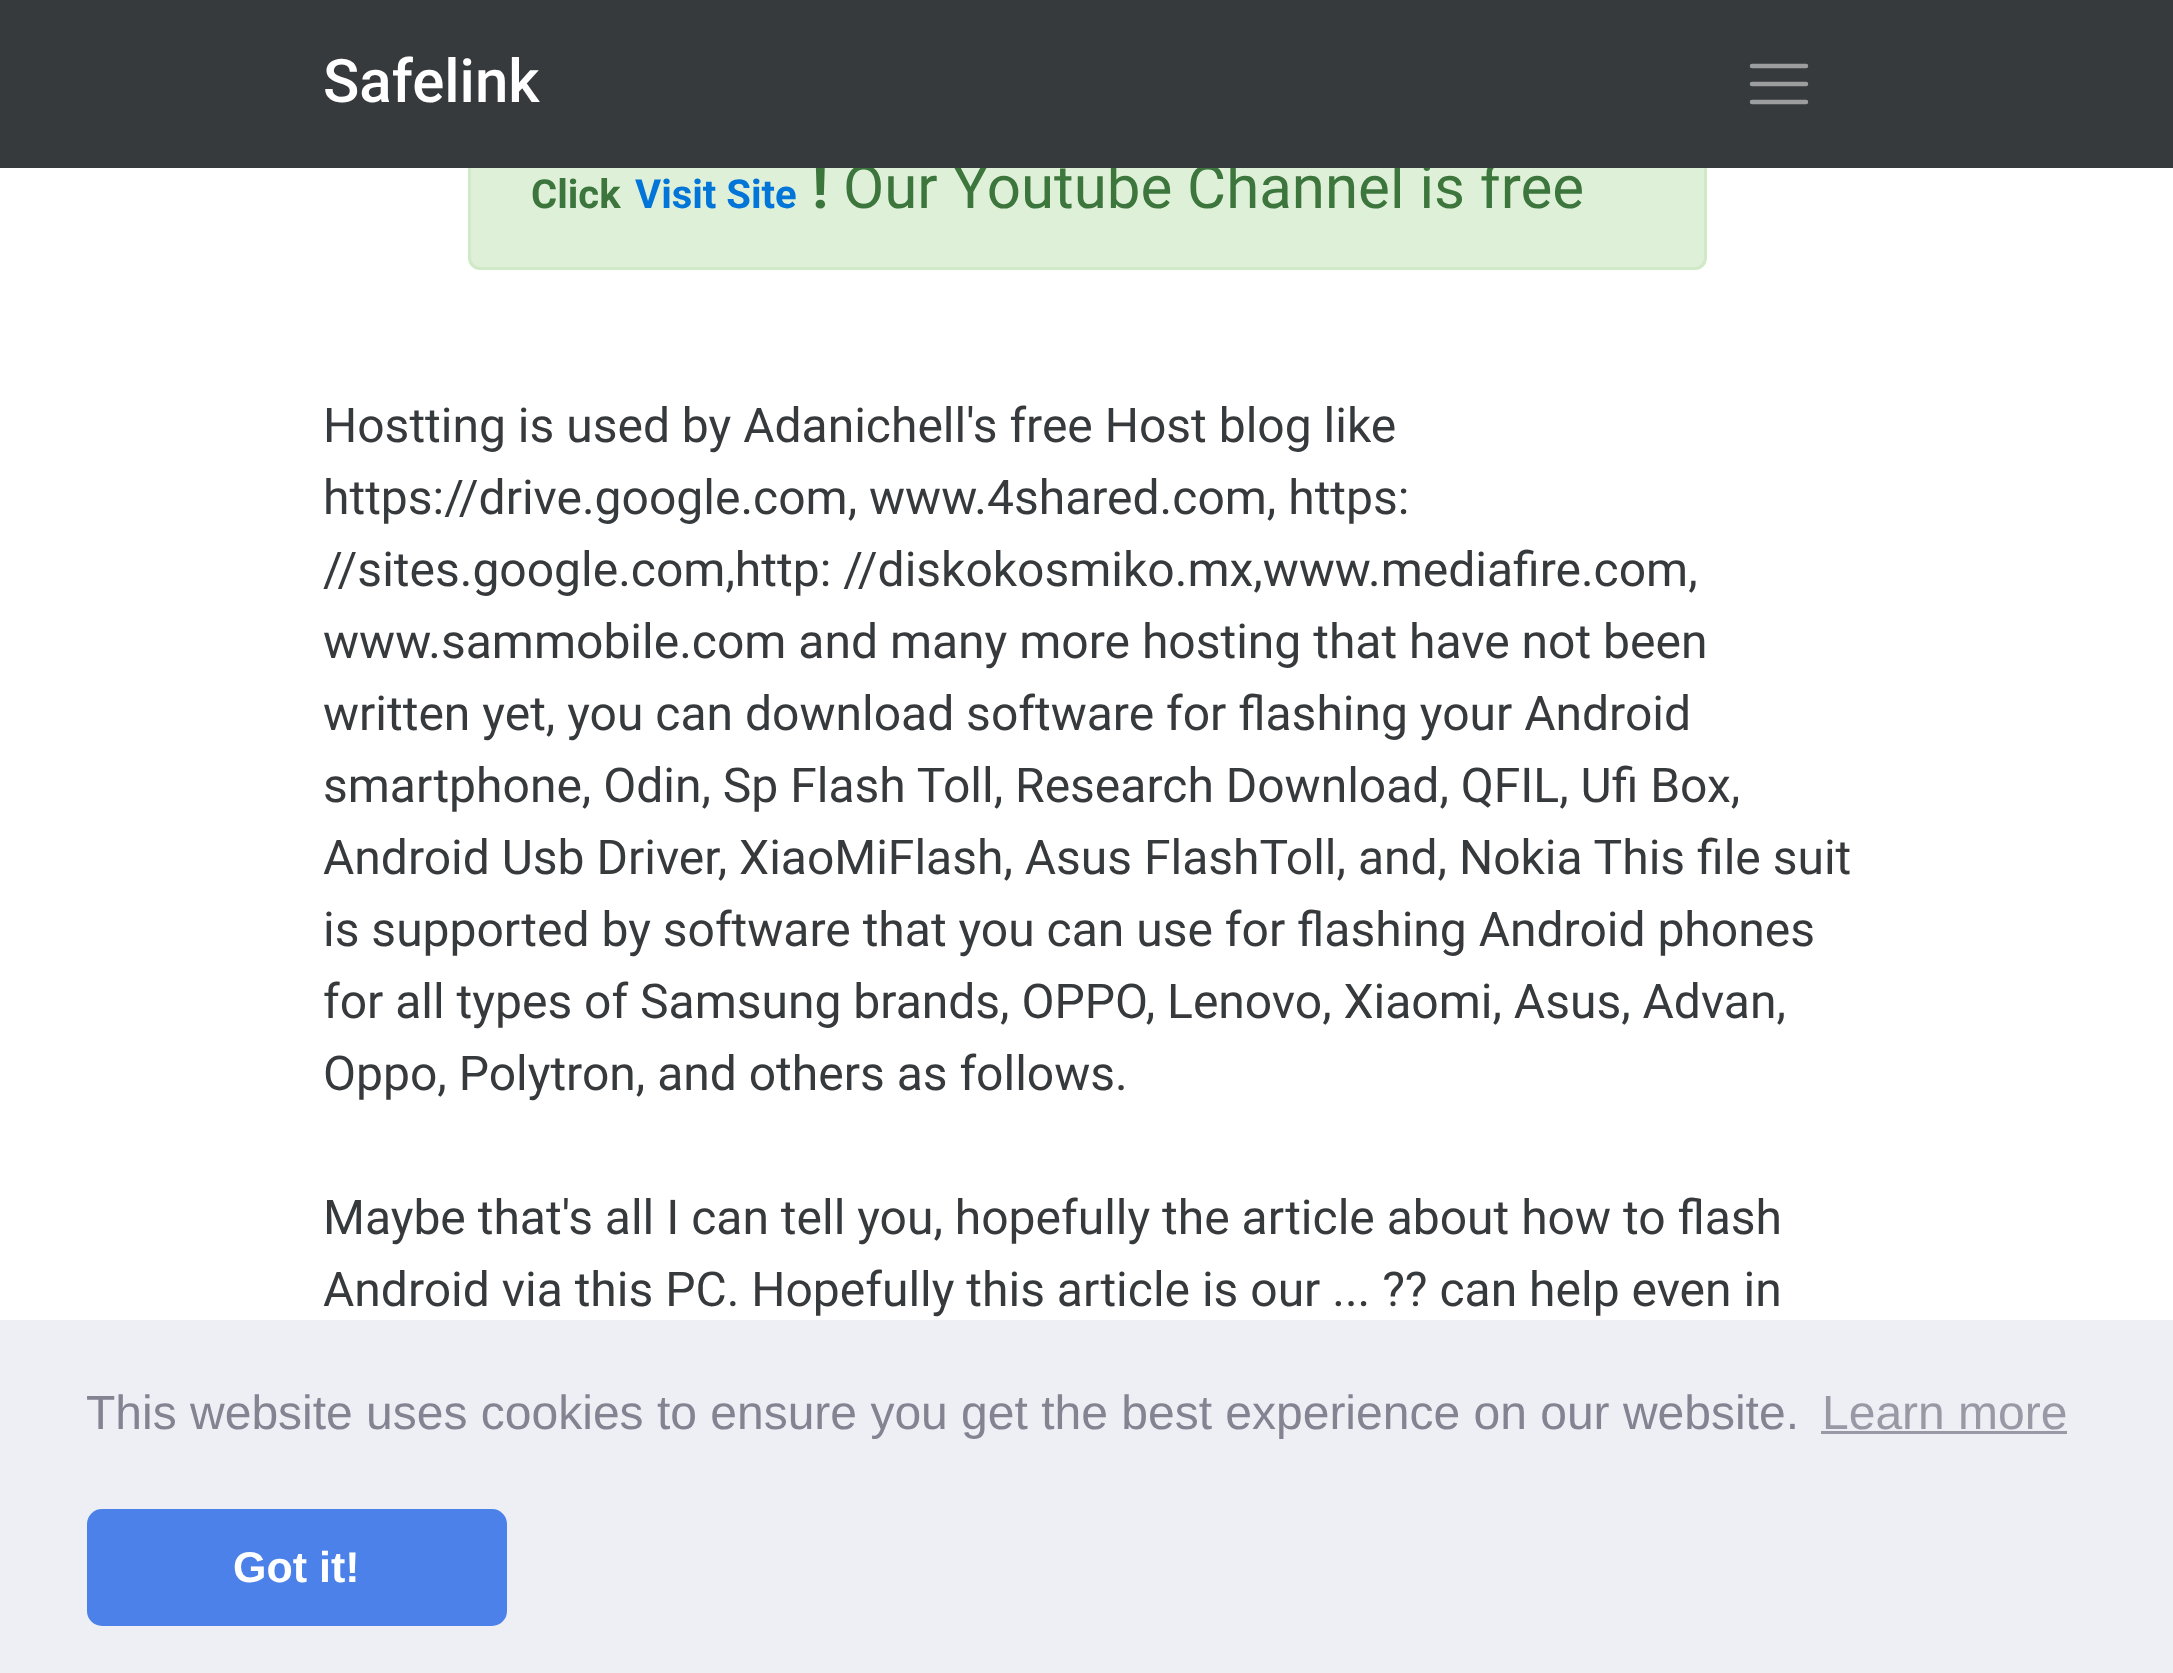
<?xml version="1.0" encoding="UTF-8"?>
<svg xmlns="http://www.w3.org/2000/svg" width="2173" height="1673">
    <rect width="100%" height="100%" fill="#FFFFFF"/>
    <rect x="469.5" y="103.5" width="1236" height="165" rx="10.5" fill="#DFF0D8" stroke="#D0E9C6" stroke-width="3"/>
    <text x="812" y="208" font-family="Roboto" font-size="60" font-weight="700" fill="#3C763D">!</text>
    <text x="843" y="208" font-family="Roboto" font-size="60" fill="#3C763D">Our Youtube Channel is free</text>
    <rect x="0" y="0" width="2173" height="168" fill="#373A3C"/>
    <text x="323" y="102" font-family="Roboto" font-size="60" font-weight="500" fill="#FFFFFF">Safelink</text>
    <path d="M 1752 66 H 1806 M 1752 84 H 1806 M 1752 102 H 1806" fill="none" stroke="#9B9D9E" stroke-width="4.5" stroke-linecap="round"/>
    <text x="531" y="208" font-family="Roboto" font-size="40" font-weight="700" fill="#3C763D">Click</text>
    <text x="635" y="208" font-family="Roboto" font-size="40" font-weight="700" fill="#0275D8">Visit Site</text>
    <text font-family="Roboto" font-size="48" fill="#373A3C">
        <tspan x="323" y="442">Hostting is used by Adanichell's free Host blog like</tspan>
        <tspan x="323" y="514">https://drive.google.com, www.4shared.com, https:</tspan>
        <tspan x="323" y="586">//sites.google.com,http: //diskokosmiko.mx,www.mediafire.com,</tspan>
        <tspan x="323" y="658">www.sammobile.com and many more hosting that have not been</tspan>
        <tspan x="323" y="730">written yet, you can download software for flashing your Android</tspan>
        <tspan x="323" y="802">smartphone, Odin, Sp Flash Toll, Research Download, QFIL, Ufi Box,</tspan>
        <tspan x="323" y="874">Android Usb Driver, XiaoMiFlash, Asus FlashToll, and, Nokia This file suit</tspan>
        <tspan x="323" y="946">is supported by software that you can use for flashing Android phones</tspan>
        <tspan x="323" y="1018">for all types of Samsung brands, OPPO, Lenovo, Xiaomi, Asus, Advan,</tspan>
        <tspan x="323" y="1090">Oppo, Polytron, and others as follows.</tspan>
    </text>
    <text font-family="Roboto" font-size="48" fill="#373A3C">
        <tspan x="323" y="1234">Maybe that's all I can tell you, hopefully the article about how to flash</tspan>
        <tspan x="323" y="1306">Android via this PC. Hopefully this article is our ... ?? can help even in</tspan>
    </text>
    <rect x="0" y="1320" width="2173" height="353" fill="#EDEFF5"/>
    <text x="86" y="1429" font-family="Liberation Sans" font-size="48" fill="#838391">This website uses cookies to ensure you get the best experience on our website.</text>
    <text x="1822" y="1429" font-family="Liberation Sans" font-size="48" fill="#9899A5">Learn more</text>
    <rect x="1821" y="1431" width="246" height="3" fill="#9899A5"/>
    <rect x="87" y="1509" width="420" height="117" rx="15" fill="#4B81E8"/>
    <text x="233" y="1582" font-family="Liberation Sans" font-size="43" font-weight="700" fill="#FFFFFF">Got it!</text>
</svg>
